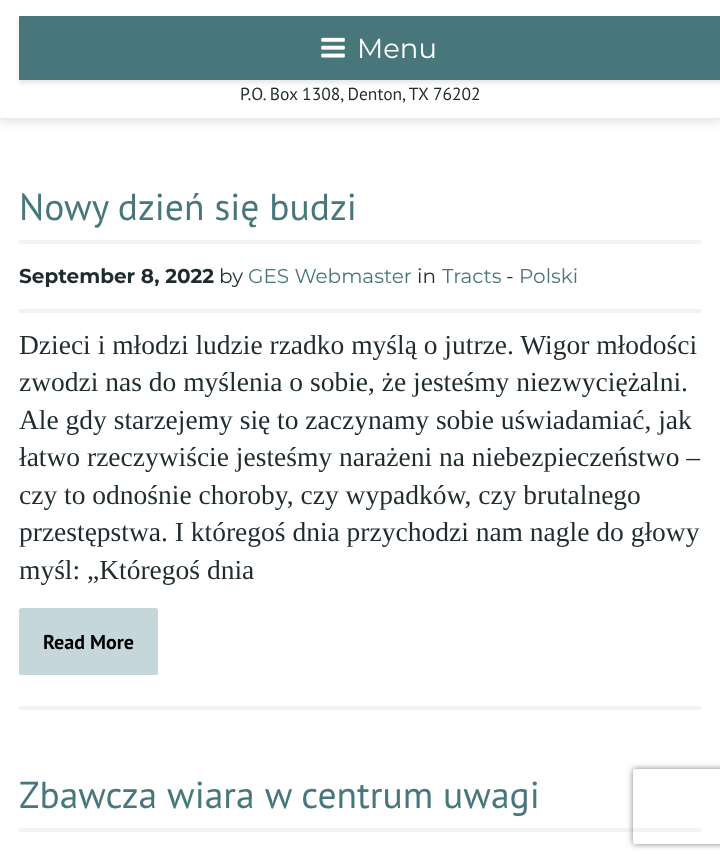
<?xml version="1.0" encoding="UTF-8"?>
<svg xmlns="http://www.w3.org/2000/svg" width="720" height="861">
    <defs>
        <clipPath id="clip1"><path d="M 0 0 H 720 V 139 H 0 Z M 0 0 H 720 V 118 H 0 Z" clip-rule="evenodd"/></clipPath>
        <filter id="blur1" x="-50%" y="-200%" width="200%" height="500%"><feGaussianBlur stdDeviation="6"/></filter>
        <filter id="blur2" x="-50%" y="-200%" width="200%" height="500%"><feGaussianBlur stdDeviation="2.5"/></filter>
        <clipPath id="clip2"><path d="M 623 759 H 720 V 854 H 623 Z M 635.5 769 H 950.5 C 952 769 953 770 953 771.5 V 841.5 C 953 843 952 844 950.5 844 H 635.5 C 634 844 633 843 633 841.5 V 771.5 C 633 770 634 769 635.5 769 Z" clip-rule="evenodd"/></clipPath>
        <filter id="blur3" x="-50%" y="-200%" width="200%" height="500%"><feGaussianBlur stdDeviation="3"/></filter>
    </defs>
    <rect width="100%" height="100%" fill="#FFFFFF"/>
    <g clip-path="url(#clip1)">
        <rect x="-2" y="-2" width="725" height="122" fill="#000000" fill-opacity="0.15" filter="url(#blur1)"/>
    </g>
    <rect x="19" y="19" width="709" height="64" fill="#000000" fill-opacity="0.1" filter="url(#blur2)"/>
    <rect x="19" y="16" width="701" height="64" fill="#47777B"/>
    <image x="321" y="37" width="24" height="21" href="img_01.png"/>
    <text x="357" y="58" font-family="Montserrat" font-size="27.5" fill="#FFFFFF">Menu</text>
    <text x="240" y="100" font-family="PT Sans" font-size="17.5" fill="#1F2B2D">P.O. Box 1308, Denton, TX 76202</text>
    <rect x="19" y="706" width="682" height="4" fill="#F0F4F5"/>
    <text x="19" y="220" font-family="PT Sans" font-size="37.5" fill="#47777B">Nowy dzień się budzi</text>
    <rect x="19" y="240" width="682" height="4" fill="#F0F4F5"/>
    <rect x="19" y="309" width="682" height="4" fill="#F0F4F5"/>
    <text x="19" y="283" font-family="Montserrat" font-size="20" font-weight="700" fill="#1F2B2D">September 8, 2022</text>
    <text x="219" y="283" font-family="Montserrat" font-size="20" fill="#1F2B2D">by</text>
    <text x="248" y="283" font-family="Montserrat" font-size="20" fill="#47777B">GES Webmaster</text>
    <text x="417" y="283" font-family="Montserrat" font-size="20" fill="#1F2B2D">in</text>
    <text x="442" y="283" font-family="Montserrat" font-size="20" fill="#47777B">Tracts</text>
    <text x="506" y="283" font-family="Montserrat" font-size="20" fill="#1F2B2D">-</text>
    <text x="519" y="283" font-family="Montserrat" font-size="20" fill="#47777B">Polski</text>
    <text font-family="Liberation Serif" font-size="27.5" fill="#1F2B2D">
        <tspan x="19" y="354">Dzieci i młodzi ludzie rzadko myślą o jutrze. Wigor młodości</tspan>
        <tspan x="19" y="391">zwodzi nas do myślenia o sobie, że jesteśmy niezwyciężalni.</tspan>
        <tspan x="19" y="429">Ale gdy starzejemy się to zaczynamy sobie uświadamiać, jak</tspan>
        <tspan x="19" y="466">łatwo rzeczywiście jesteśmy narażeni na niebezpieczeństwo –</tspan>
        <tspan x="19" y="504">czy to odnośnie choroby, czy wypadków, czy brutalnego</tspan>
        <tspan x="19" y="541">przestępstwa. I któregoś dnia przychodzi nam nagle do głowy</tspan>
        <tspan x="19" y="579">myśl: „Któregoś dnia</tspan>
    </text>
    <rect x="19" y="608" width="139" height="67" rx="2.5" fill="#C5D7DA"/>
    <text x="43" y="649" font-family="PT Sans" font-size="20" font-weight="700" fill="#000000">Read More</text>
    <text x="19" y="808" font-family="PT Sans" font-size="37.5" fill="#47777B">Zbawcza wiara w centrum uwagi</text>
    <rect x="19" y="828" width="682" height="4" fill="#F0F4F5"/>
    <g clip-path="url(#clip2)">
        <rect x="633" y="769" width="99" height="75" rx="2.5" fill="#808080" filter="url(#blur3)"/>
    </g>
</svg>
